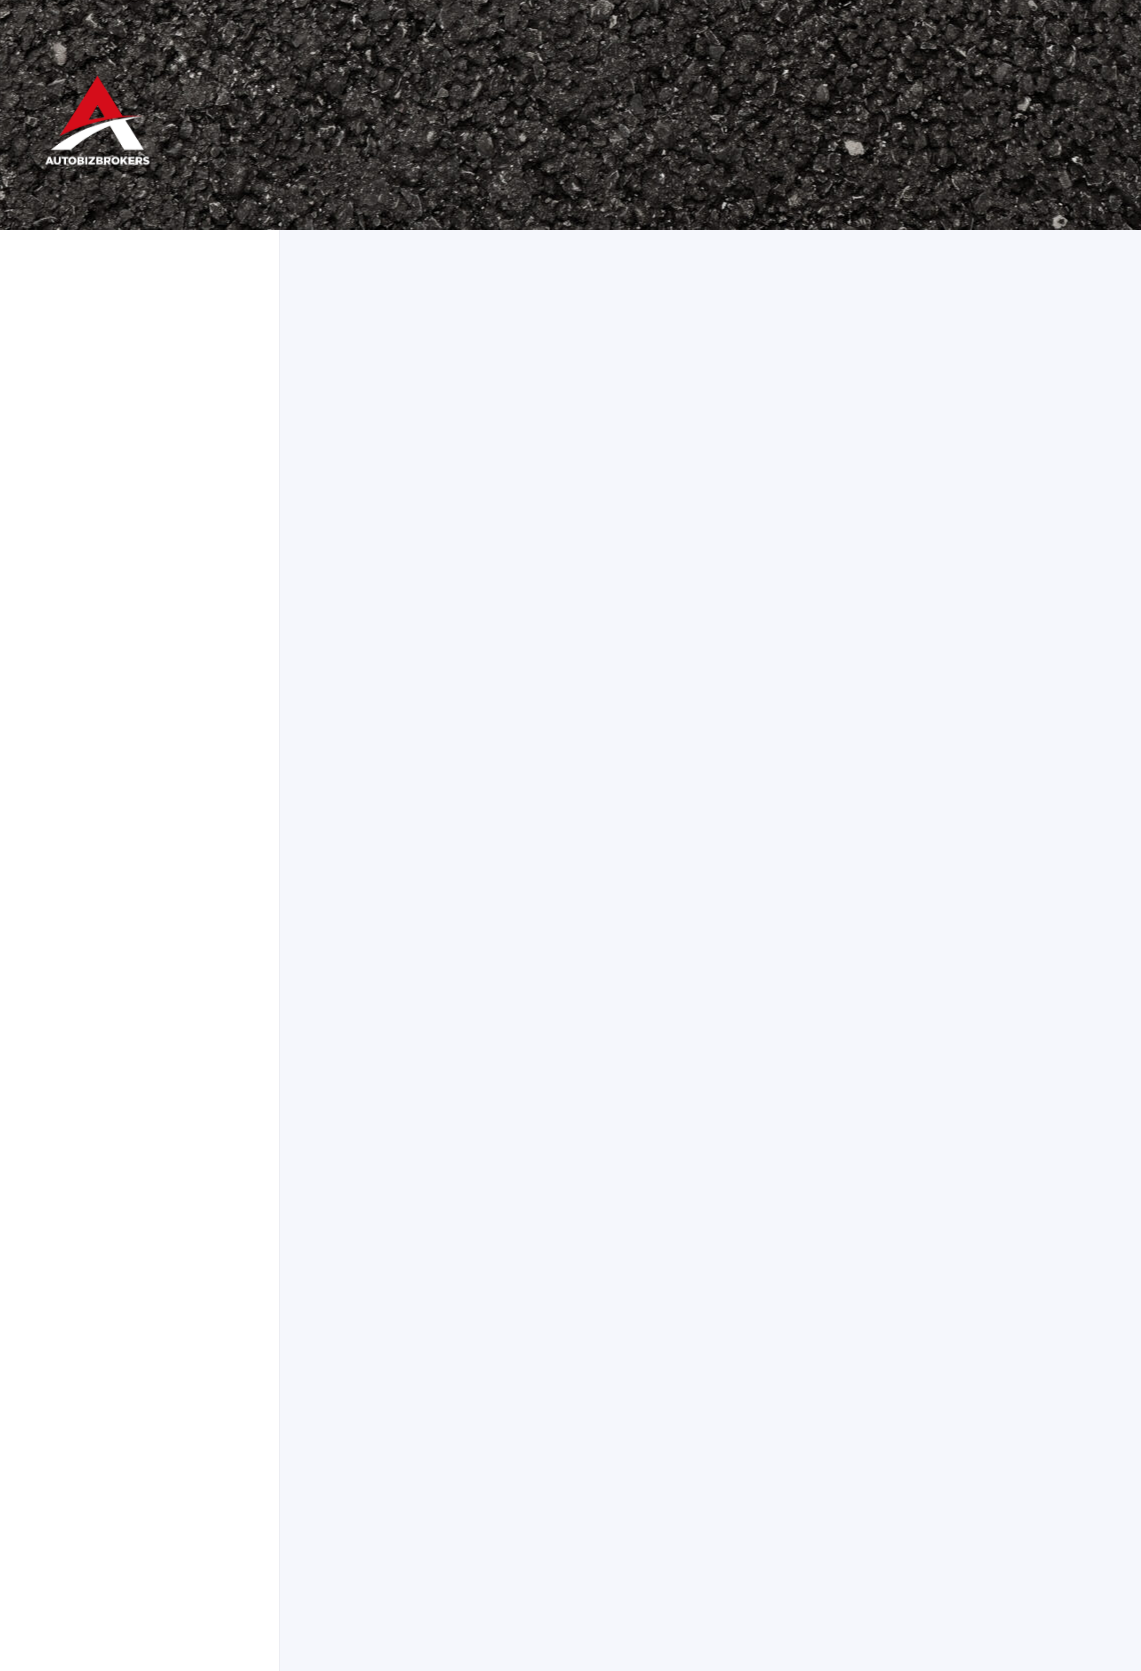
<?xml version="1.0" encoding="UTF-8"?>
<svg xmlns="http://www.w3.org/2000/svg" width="1141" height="1671">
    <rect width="100%" height="100%" fill="#F5F7FC"/>
    <image x="0" y="0" width="1141" height="230" href="img_01.png"/>
    <image x="44" y="75" width="106" height="91" href="img_02.png"/>
    <rect x="0" y="230" width="279" height="1441" fill="#FFFFFF"/>
    <rect x="279" y="230" width="1" height="1441" fill="#ECEDF2"/>
</svg>
